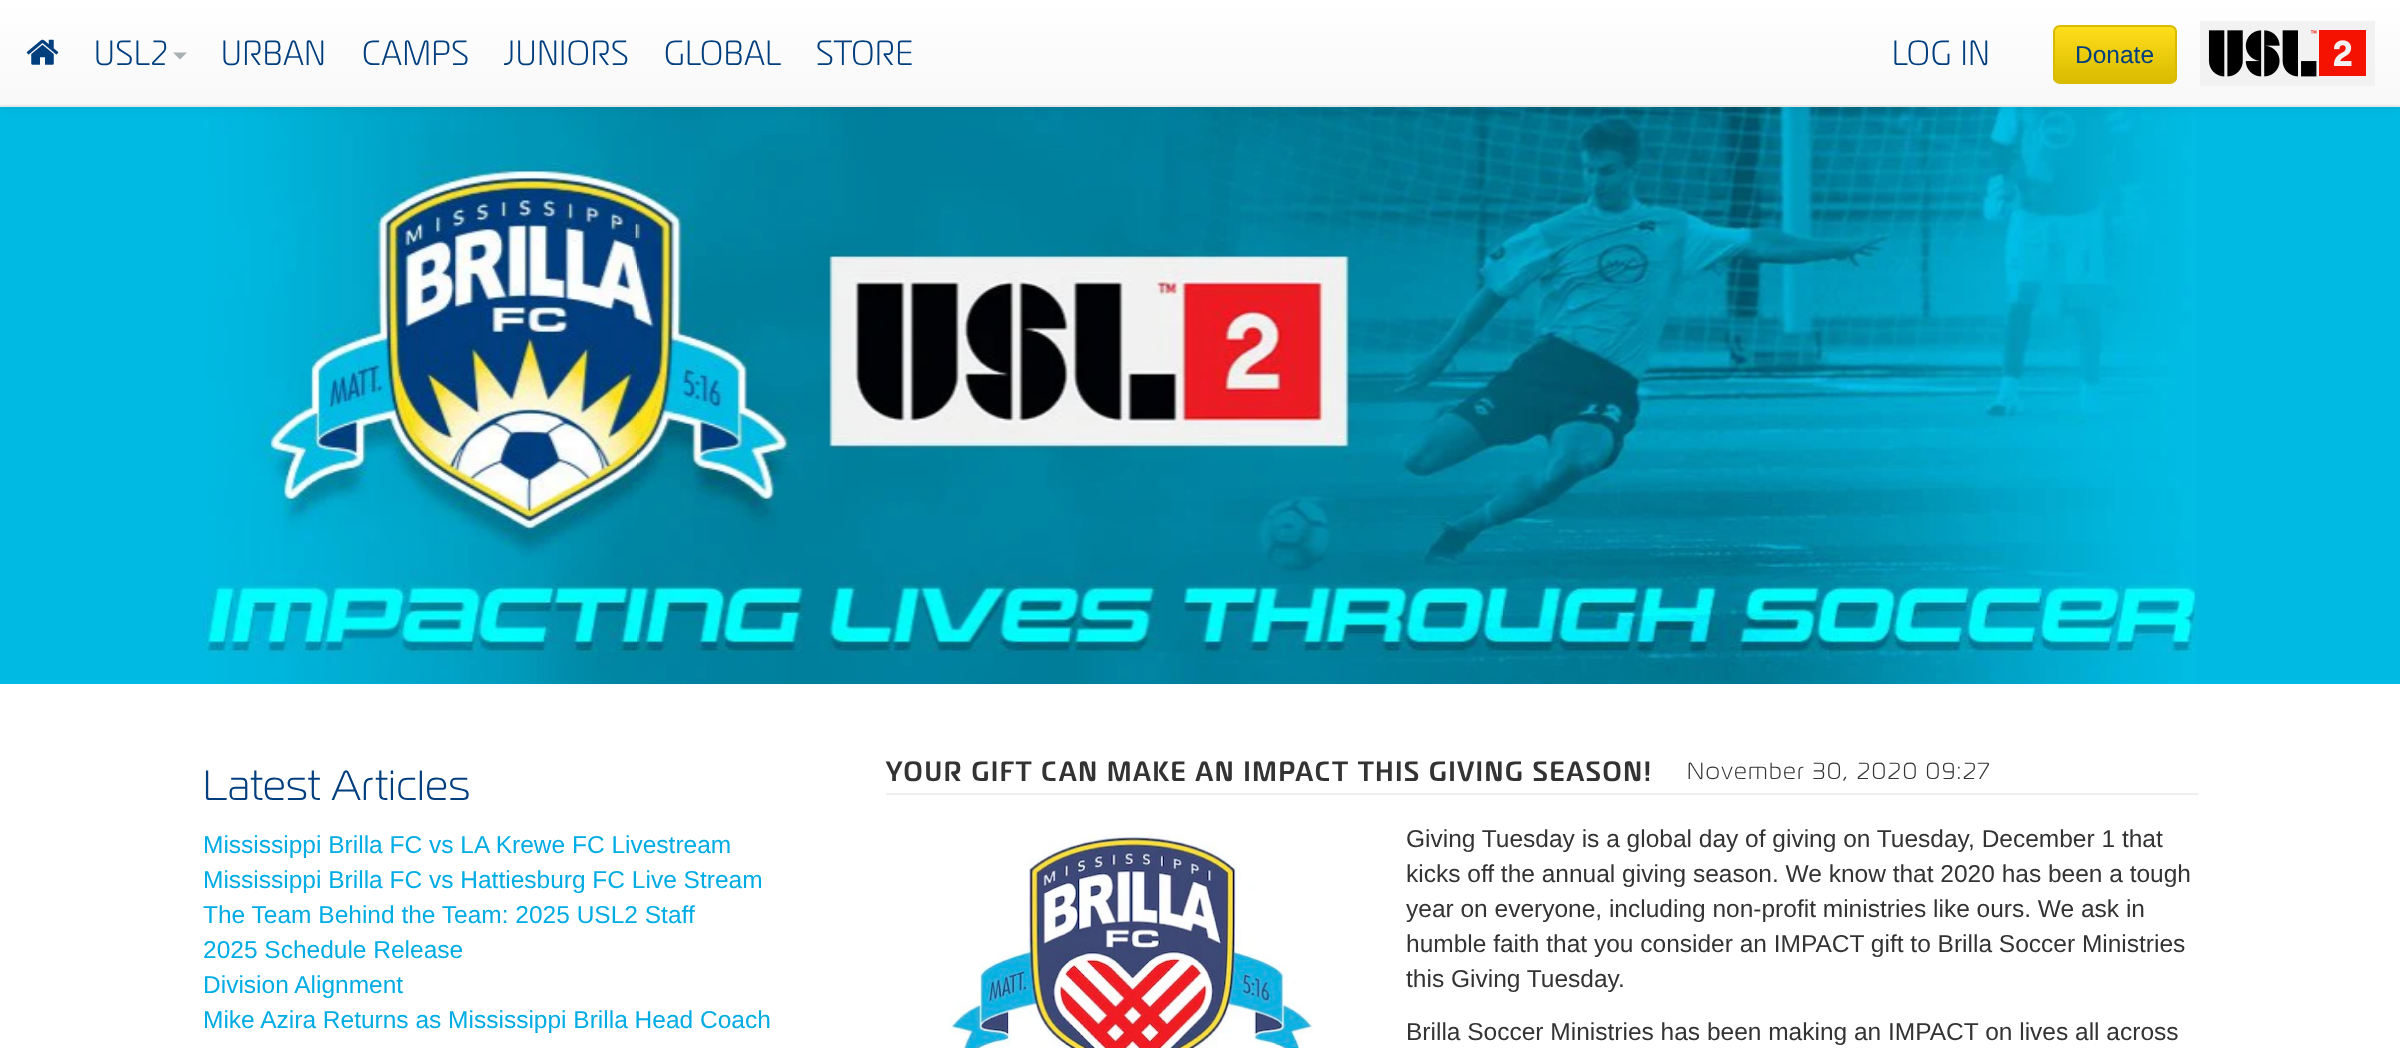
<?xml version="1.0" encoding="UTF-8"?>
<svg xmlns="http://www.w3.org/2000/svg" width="2400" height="1048">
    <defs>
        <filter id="blur1" x="-50%" y="-200%" width="200%" height="500%"><feGaussianBlur stdDeviation="4.5"/></filter>
        <linearGradient id="g1" gradientUnits="userSpaceOnUse" x1="1201" y1="0" x2="1201" y2="105"><stop offset="0" stop-color="#FFFFFF"/><stop offset="1" stop-color="#F8F8F8"/></linearGradient>
        <clipPath id="clip1"><rect x="2053" y="25" width="124" height="59" rx="7"/></clipPath>
        <linearGradient id="g2" gradientUnits="userSpaceOnUse" x1="2115" y1="26" x2="2115" y2="82"><stop offset="0" stop-color="#FFDF1B"/><stop offset="1" stop-color="#D9BB00"/></linearGradient>
    </defs>
    <rect width="100%" height="100%" fill="#00BAE3"/>
    <image x="203" y="107" width="1995" height="577" href="img_03.png"/>
    <rect x="0" y="2" width="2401" height="107" fill="#000000" fill-opacity="0.07" filter="url(#blur1)"/>
    <rect x="0" y="0" width="2400" height="105" fill="url(#g1)"/>
    <rect x="0" y="105" width="2400" height="2" fill="#E7E7E7"/>
    <image x="26" y="39" width="33" height="26" href="img_01.png"/>
    <text x="94" y="65" font-family="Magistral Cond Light" font-size="35" font-weight="300" letter-spacing="0.75" fill="#003E7E">USL2</text>
    <path d="M 173 52.5 H 187 L 180 59.5 Z" fill="#AAB1B4"/>
    <text x="221" y="65" font-family="Magistral Cond Light" font-size="35" font-weight="300" letter-spacing="0.75" fill="#003E7E">URBAN</text>
    <text x="362" y="65" font-family="Magistral Cond Light" font-size="35" font-weight="300" letter-spacing="0.75" fill="#003E7E">CAMPS</text>
    <text x="504" y="65" font-family="Magistral Cond Light" font-size="35" font-weight="300" letter-spacing="0.75" fill="#003E7E">JUNIORS</text>
    <text x="664" y="65" font-family="Magistral Cond Light" font-size="35" font-weight="300" letter-spacing="0.75" fill="#003E7E">GLOBAL</text>
    <text x="816" y="65" font-family="Magistral Cond Light" font-size="35" font-weight="300" letter-spacing="0.75" fill="#003E7E">STORE</text>
    <text x="1892" y="65" font-family="Magistral Cond Light" font-size="35" font-weight="300" letter-spacing="0.75" fill="#003E7E">LOG IN</text>
    <g clip-path="url(#clip1)">
        <rect x="2053" y="26" width="124" height="56" fill="url(#g2)"/>
    </g>
    <rect x="2054" y="26" width="122" height="57" rx="6" fill="none" stroke="#D9BB00" stroke-width="2"/>
    <text x="2075" y="63" font-family="Liberation Sans" font-size="24.5" fill="#003E7E">Donate</text>
    <image x="2200" y="21" width="175" height="65" href="img_02.png"/>
    <rect x="0" y="684" width="2400" height="364" fill="#FFFFFF"/>
    <text x="203" y="800" font-family="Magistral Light" font-size="42" font-weight="300" letter-spacing="1.25" fill="#003E7E">Latest Articles</text>
    <text font-family="Liberation Sans" font-size="24.5" fill="#00ACE4">
        <tspan x="203" y="853">Mississippi Brilla FC vs LA Krewe FC Livestream</tspan>
        <tspan x="203" y="888">Mississippi Brilla FC vs Hattiesburg FC Live Stream</tspan>
        <tspan x="203" y="923">The Team Behind the Team: 2025 USL2 Staff</tspan>
        <tspan x="203" y="958">2025 Schedule Release</tspan>
        <tspan x="203" y="993">Division Alignment</tspan>
        <tspan x="203" y="1028">Mike Azira Returns as Mississippi Brilla Head Coach</tspan>
    </text>
    <rect x="886" y="793" width="1312" height="2" fill="#EEEEEE"/>
    <text x="886" y="781" font-family="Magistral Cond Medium" font-size="28" font-weight="500" letter-spacing="1.75" fill="#333333">YOUR GIFT CAN MAKE AN IMPACT THIS GIVING SEASON!</text>
    <text x="1687" y="779" font-family="Magistral Light" font-size="23.25" font-weight="300" letter-spacing="1.75" fill="#333333">November 30, 2020 09:27</text>
    <image x="948" y="835" width="365" height="213" href="img_04.png"/>
    <text font-family="Liberation Sans" font-size="24.5" fill="#333333">
        <tspan x="1406" y="847">Giving Tuesday is a global day of giving on Tuesday, December 1 that</tspan>
        <tspan x="1406" y="882">kicks off the annual giving season. We know that 2020 has been a tough</tspan>
        <tspan x="1406" y="917">year on everyone, including non-profit ministries like ours. We ask in</tspan>
        <tspan x="1406" y="952">humble faith that you consider an IMPACT gift to Brilla Soccer Ministries</tspan>
        <tspan x="1406" y="987">this Giving Tuesday.</tspan>
    </text>
    <text x="1406" y="1040" font-family="Liberation Sans" font-size="24.5" fill="#333333">Brilla Soccer Ministries has been making an IMPACT on lives all across</text>
</svg>
